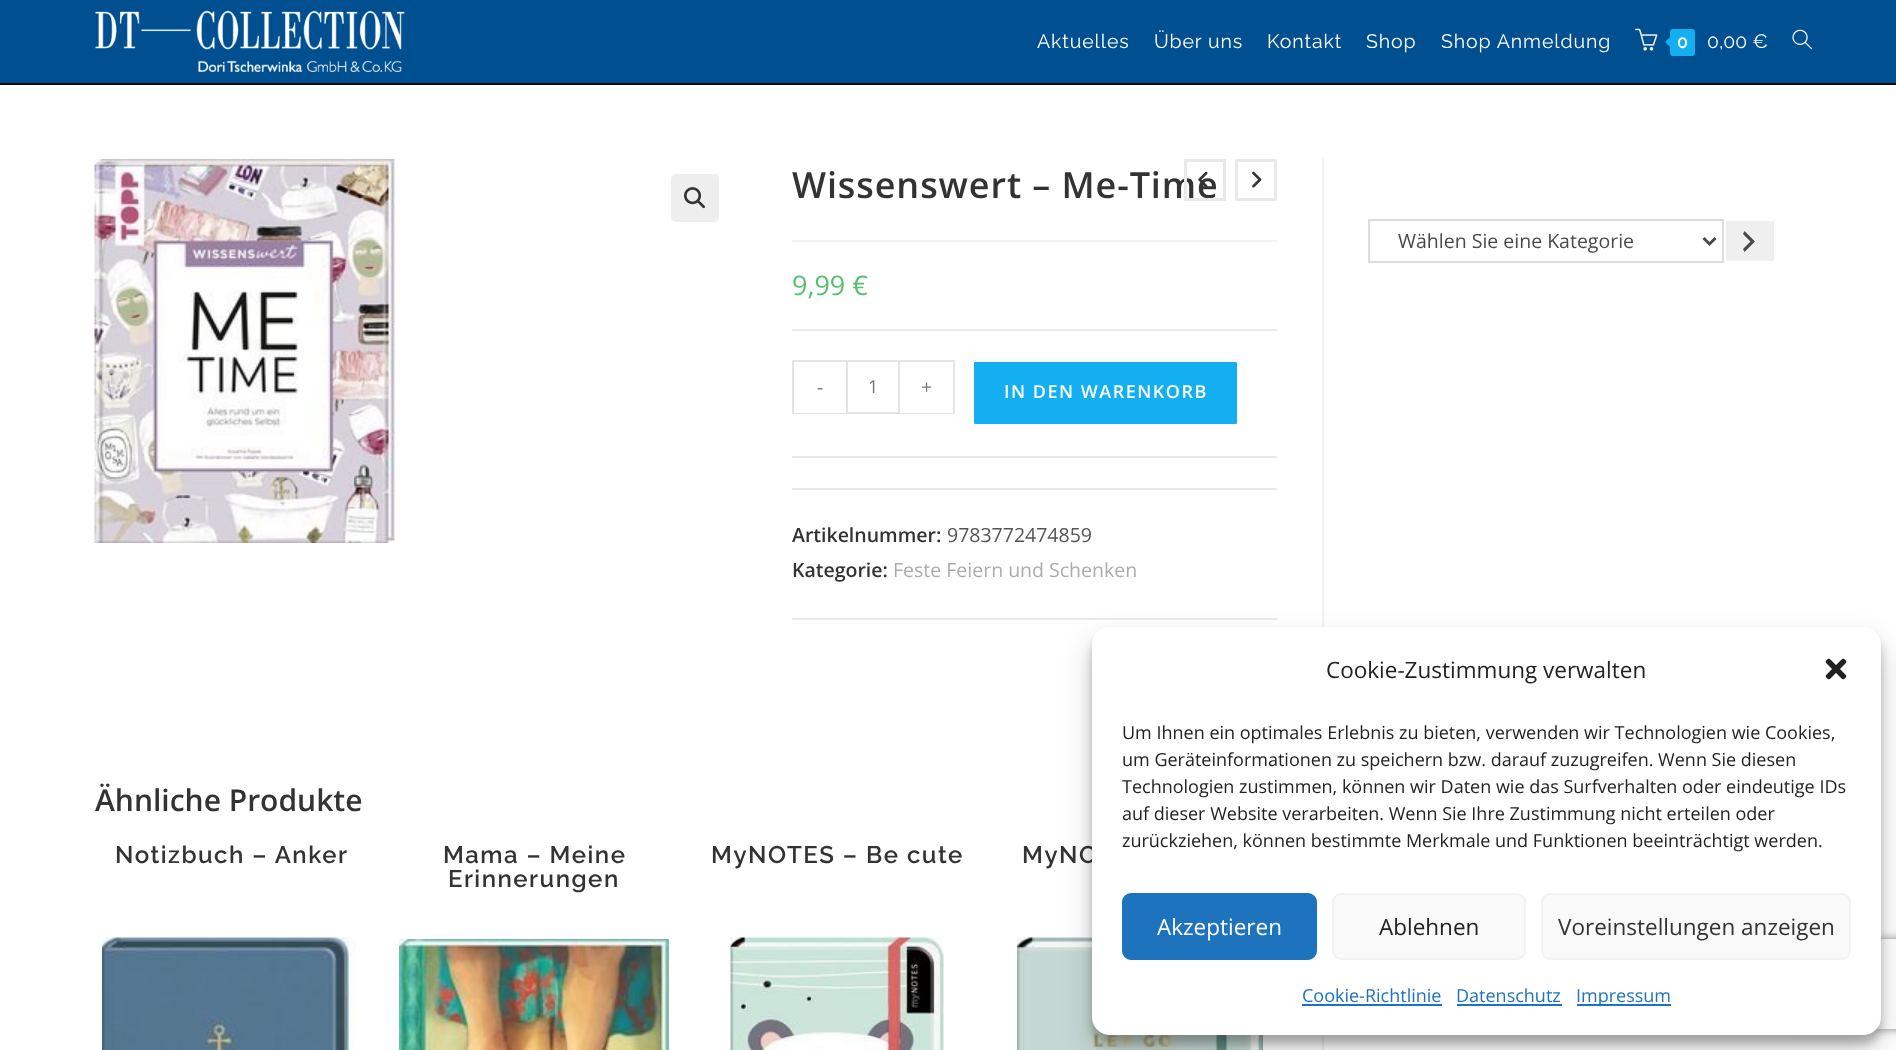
<?xml version="1.0" encoding="UTF-8"?>
<svg xmlns="http://www.w3.org/2000/svg" width="1896" height="1050">
    <defs>
        <filter id="blur1" x="-50%" y="-200%" width="200%" height="500%"><feGaussianBlur stdDeviation="4.5"/></filter>
        <filter id="blur2" x="-50%" y="-200%" width="200%" height="500%"><feGaussianBlur stdDeviation="15"/></filter>
        <clipPath id="clip1"><path d="M 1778 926 H 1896 V 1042 H 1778 Z M 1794 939 H 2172 C 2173.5 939 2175 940.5 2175 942 V 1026 C 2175 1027.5 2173.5 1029 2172 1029 H 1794 C 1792.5 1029 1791 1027.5 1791 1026 V 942 C 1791 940.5 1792.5 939 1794 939 Z" clip-rule="evenodd"/></clipPath>
        <filter id="blur3" x="-50%" y="-200%" width="200%" height="500%"><feGaussianBlur stdDeviation="4"/></filter>
    </defs>
    <rect width="100%" height="100%" fill="#FFFFFF"/>
    <rect x="0" y="0" width="1896" height="83" fill="#005091"/>
    <rect x="0" y="83" width="1896" height="2" fill="#0A0A0A"/>
    <image x="95" y="10" width="310" height="63" href="img_01.png"/>
    <text x="1037" y="48" font-family="Raleway" font-size="19.5" letter-spacing="0.9" fill="#FFFFFF">Aktuelles</text>
    <text x="1154" y="48" font-family="Raleway" font-size="19.5" letter-spacing="0.9" fill="#FFFFFF">Über uns</text>
    <text x="1267" y="48" font-family="Raleway" font-size="19.5" letter-spacing="0.9" fill="#FFFFFF">Kontakt</text>
    <text x="1366" y="48" font-family="Raleway" font-size="19.5" letter-spacing="0.9" fill="#FFFFFF">Shop</text>
    <text x="1441" y="48" font-family="Raleway" font-size="19.5" letter-spacing="0.9" fill="#FFFFFF">Shop Anmeldung</text>
    <image x="1635" y="28" width="23" height="23" href="img_02.png"/>
    <rect x="1670" y="29" width="25" height="27" rx="3" fill="#13AFF0"/>
    <path d="M 1672.5 34.5 V 49.5 L 1665 42 Z" fill="#13AFF0"/>
    <text x="1677" y="48" font-family="Raleway" font-size="18" font-weight="600" fill="#FFFFFF">0</text>
    <text x="1707" y="48" font-family="Raleway" font-size="19.5" fill="#FFFFFF">0,00 €</text>
    <image x="1792" y="29" width="20" height="21" href="img_03.png"/>
    <rect x="1322" y="159" width="2" height="891" fill="#F1F1F1"/>
    <image x="94" y="159" width="301" height="384" href="img_04.png"/>
    <rect x="671" y="174" width="48" height="48" rx="5" fill="#EEEEEE"/>
    <image x="684" y="187" width="21" height="22" href="img_05.png"/>
    <rect x="792" y="240" width="485" height="2" fill="#F1F1F1"/>
    <text x="792" y="198" font-family="Open Sans" font-size="36" font-weight="600" letter-spacing="0.9" fill="#333333">Wissenswert – Me-Time</text>
    <text x="792" y="295" font-family="Open Sans" font-size="27" fill="#57BF6D">9,99 €</text>
    <rect x="792" y="329" width="485" height="2" fill="#EAEAEA"/>
    <rect x="792" y="456" width="485" height="2" fill="#EAEAEA"/>
    <rect x="792" y="360" width="54" height="2" fill="#E4E4E4"/>
    <rect x="792" y="413" width="54" height="1" fill="#E4E4E4"/>
    <rect x="792" y="360" width="2" height="54" fill="#E4E4E4"/>
    <text x="817" y="394" font-family="Open Sans" font-size="19.5" fill="#777777">-</text>
    <rect x="847" y="361" width="52" height="52" fill="none" stroke="#E4E4E4" stroke-width="2"/>
    <text x="868" y="393" font-family="Open Sans" font-size="18" fill="#777777">1</text>
    <rect x="900" y="360" width="54" height="2" fill="#E4E4E4"/>
    <rect x="953" y="360" width="2" height="54" fill="#E4E4E4"/>
    <rect x="900" y="413" width="54" height="1" fill="#E4E4E4"/>
    <text x="921" y="394" font-family="Open Sans" font-size="19.5" fill="#777777">+</text>
    <rect x="973" y="361" width="265" height="64" rx="2" fill="#13AFF0" stroke="#FFFFFF" stroke-width="2"/>
    <text x="1004" y="398" font-family="Open Sans" font-size="18" font-weight="600" letter-spacing="1.5" fill="#FFFFFF">IN DEN WARENKORB</text>
    <rect x="792" y="488" width="485" height="2" fill="#EAEAEA"/>
    <rect x="792" y="618" width="485" height="2" fill="#EAEAEA"/>
    <text x="792" y="542" font-family="Open Sans" font-size="19.5" font-weight="600" fill="#333333">Artikelnummer:</text>
    <text x="947" y="542" font-family="Open Sans" font-size="19.5" fill="#555555">9783772474859</text>
    <text x="792" y="577" font-family="Open Sans" font-size="19.5" font-weight="600" fill="#333333">Kategorie:</text>
    <text x="893" y="577" font-family="Open Sans" font-size="19.5" fill="#ABABAB">Feste Feiern und Schenken</text>
    <rect x="1185.5" y="160.5" width="39" height="39" fill="none" stroke="#E9E9E9" stroke-width="3"/>
    <image x="1198" y="171" width="10" height="16" href="img_06.png"/>
    <rect x="1236.5" y="160.5" width="39" height="39" fill="none" stroke="#E9E9E9" stroke-width="3"/>
    <image x="1252" y="171" width="10" height="17" href="img_07.png"/>
    <text x="95" y="811" font-family="Open Sans" font-size="30" font-weight="600" fill="#333333">Ähnliche Produkte</text>
    <text x="115" y="863" font-family="Raleway" font-size="24" font-weight="600" letter-spacing="1.5" fill="#333333">Notizbuch – Anker</text>
    <image x="102" y="937" width="254" height="113" href="img_08.png"/>
    <text x="443" y="863" font-family="Raleway" font-size="24" font-weight="600" letter-spacing="1.5" fill="#333333">Mama – Meine</text>
    <text x="448" y="887" font-family="Raleway" font-size="24" font-weight="600" letter-spacing="1.5" fill="#333333">Erinnerungen</text>
    <image x="399" y="939" width="270" height="111" href="img_09.png"/>
    <text x="711" y="863" font-family="Raleway" font-size="24" font-weight="600" letter-spacing="1.5" fill="#333333">MyNOTES – Be cute</text>
    <image x="730" y="937" width="214" height="113" href="img_10.png"/>
    <text x="1022" y="863" font-family="Raleway" font-size="24" font-weight="600" letter-spacing="1.5" fill="#333333">MyNO</text>
    <image x="1017" y="937" width="246" height="113" href="img_11.png"/>
    <rect x="1369" y="220" width="354" height="42" fill="none" stroke="#DDDDDD" stroke-width="2"/>
    <path d="M 1703.5 238 L 1709.5 244 L 1715.5 238" fill="none" stroke="#4A4A4A" stroke-width="3"/>
    <text x="1398" y="248" font-family="Open Sans" font-size="19.5" fill="#4A4A4A">Wählen Sie eine Kategorie</text>
    <rect x="1726" y="221" width="48" height="40" fill="#EFEFEF"/>
    <path d="M 1743 249 L 1750.5 241.5 L 1743 234 L 1744.5 231 L 1755 241.5 L 1744.5 252 Z" fill="#4A4A4A"/>
    <rect x="1092" y="636" width="789" height="408" rx="18" fill="#000000" fill-opacity="0.23" filter="url(#blur1)"/>
    <rect x="1092" y="642" width="789" height="408" rx="18" fill="#000000" fill-opacity="0.19" filter="url(#blur2)"/>
    <g clip-path="url(#clip1)">
        <rect x="1791" y="939" width="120" height="90" rx="3" fill="#808080" filter="url(#blur3)"/>
    </g>
    <rect x="1092" y="627" width="789" height="408" rx="18" fill="#FFFFFF"/>
    <text x="1326" y="678" font-family="Open Sans" font-size="22.5" fill="#222222">Cookie-Zustimmung verwalten</text>
    <image x="1825" y="658" width="22" height="22" href="img_12.png"/>
    <text font-family="Open Sans" font-size="18" fill="#222222">
        <tspan x="1122" y="739">Um Ihnen ein optimales Erlebnis zu bieten, verwenden wir Technologien wie Cookies,</tspan>
        <tspan x="1122" y="766">um Geräteinformationen zu speichern bzw. darauf zuzugreifen. Wenn Sie diesen</tspan>
        <tspan x="1122" y="793">Technologien zustimmen, können wir Daten wie das Surfverhalten oder eindeutige IDs</tspan>
        <tspan x="1122" y="820">auf dieser Website verarbeiten. Wenn Sie Ihre Zustimmung nicht erteilen oder</tspan>
        <tspan x="1122" y="847">zurückziehen, können bestimmte Merkmale und Funktionen beeinträchtigt werden.</tspan>
    </text>
    <rect x="1123" y="894" width="193" height="65" rx="8" fill="#1E73BE" stroke="#1E73BE" stroke-width="2"/>
    <text x="1157" y="935" font-family="Open Sans" font-size="22.5" fill="#FFFFFF">Akzeptieren</text>
    <rect x="1333" y="894" width="192" height="65" rx="8" fill="#F9F9F9" stroke="#F2F2F2" stroke-width="2"/>
    <text x="1379" y="935" font-family="Open Sans" font-size="22.5" fill="#222222">Ablehnen</text>
    <rect x="1542" y="894" width="308" height="65" rx="8" fill="#F9F9F9" stroke="#F2F2F2" stroke-width="2"/>
    <text x="1558" y="935" font-family="Open Sans" font-size="22.5" fill="#333333">Voreinstellungen anzeigen</text>
    <text x="1302" y="1002" font-family="Open Sans" font-size="18" fill="#1E73BE">Cookie-Richtlinie</text>
    <rect x="1302" y="1004" width="140" height="2" fill="#1E73BE"/>
    <text x="1456" y="1002" font-family="Open Sans" font-size="18" fill="#1E73BE">Datenschutz</text>
    <rect x="1457" y="1004" width="105" height="2" fill="#1E73BE"/>
    <rect x="1577" y="1004" width="94" height="2" fill="#1E73BE"/>
    <text x="1576" y="1002" font-family="Open Sans" font-size="18" fill="#1E73BE">Impressum</text>
</svg>
